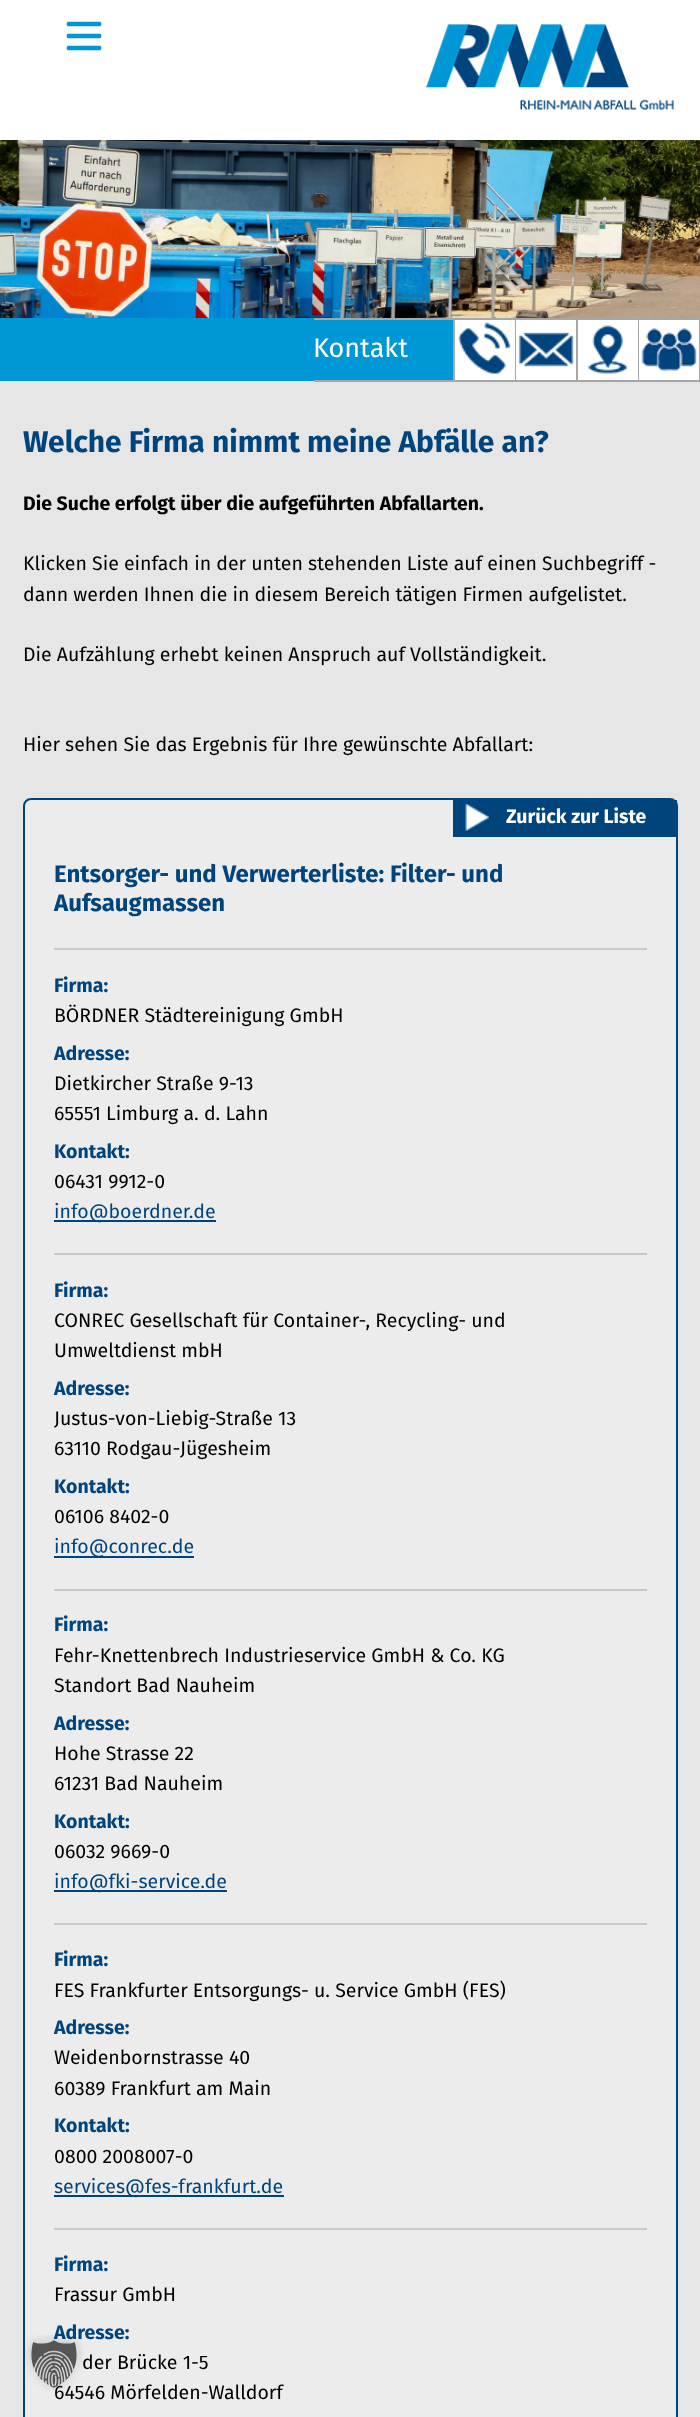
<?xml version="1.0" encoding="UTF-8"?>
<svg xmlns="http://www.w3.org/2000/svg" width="700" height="2417">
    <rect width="100%" height="100%" fill="#FFFFFF"/>
    <image x="66" y="21" width="36" height="30" href="img_01.png"/>
    <image x="426" y="24" width="248" height="86" href="img_02.png"/>
    <image x="0" y="140" width="700" height="178" href="img_03.png"/>
    <rect x="0" y="381" width="700" height="2036" fill="#E6E6E6"/>
    <rect x="0" y="318" width="453" height="63" fill="#0097D7"/>
    <rect x="314" y="318" width="386" height="2" fill="#A7A7A7"/>
    <rect x="453" y="318" width="2" height="63" fill="#A7A7A7"/>
    <rect x="314" y="380" width="141" height="2" fill="#A7A7A7"/>
    <text x="313" y="357" font-family="Fira Sans" font-size="27" fill="#FFFFFF">Kontakt</text>
    <rect x="515" y="318" width="1" height="63" fill="#A7A7A7"/>
    <rect x="455" y="380" width="61" height="2" fill="#A7A7A7"/>
    <image x="458" y="322" width="53" height="52" href="img_04.png"/>
    <rect x="576" y="318" width="2" height="63" fill="#A7A7A7"/>
    <rect x="516" y="380" width="62" height="2" fill="#A7A7A7"/>
    <image x="518" y="332" width="56" height="35" href="img_05.png"/>
    <rect x="638" y="318" width="1" height="63" fill="#A7A7A7"/>
    <rect x="578" y="380" width="61" height="2" fill="#A7A7A7"/>
    <image x="587" y="325" width="41" height="49" href="img_06.png"/>
    <rect x="699" y="318" width="1" height="63" fill="#A7A7A7"/>
    <rect x="639" y="380" width="61" height="2" fill="#A7A7A7"/>
    <image x="641" y="328" width="56" height="43" href="img_07.png"/>
    <text x="23" y="452" font-family="Fira Sans" font-size="30" font-weight="700" fill="#00447E">Welche Firma nimmt meine Abfälle an?</text>
    <text x="23" y="510" font-family="Fira Sans" font-size="19.5" font-weight="700" fill="#000000">Die Suche erfolgt über die aufgeführten Abfallarten.</text>
    <text font-family="Fira Sans" font-size="19.5" fill="#000000">
        <tspan x="23" y="570">Klicken Sie einfach in der unten stehenden Liste auf einen Suchbegriff -</tspan>
        <tspan x="23" y="601">dann werden Ihnen die in diesem Bereich tätigen Firmen aufgelistet.</tspan>
    </text>
    <text x="23" y="661" font-family="Fira Sans" font-size="19.5" fill="#000000">Die Aufzählung erhebt keinen Anspruch auf Vollständigkeit.</text>
    <text x="23" y="751" font-family="Fira Sans" font-size="19.5" fill="#000000">Hier sehen Sie das Ergebnis für Ihre gewünschte Abfallart:</text>
    <rect x="24" y="799" width="653" height="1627" rx="7" fill="#ECECEC" stroke="#00447E" stroke-width="2"/>
    <rect x="453" y="800" width="224" height="37" fill="#00447E"/>
    <image x="465" y="804" width="24" height="27" href="img_08.png"/>
    <text x="506" y="823" font-family="Fira Sans" font-size="19.5" font-weight="700" fill="#FFFFFF">Zurück zur Liste</text>
    <text font-family="Fira Sans" font-size="24" font-weight="700" fill="#00447E">
        <tspan x="54" y="882">Entsorger- und Verwerterliste: Filter- und</tspan>
        <tspan x="54" y="911">Aufsaugmassen</tspan>
    </text>
    <rect x="54" y="948" width="593" height="2" fill="#C9C9C9"/>
    <rect x="54" y="1253" width="593" height="2" fill="#C9C9C9"/>
    <text x="54" y="992" font-family="Fira Sans" font-size="19.5" font-weight="700" fill="#00447E">Firma:</text>
    <text x="54" y="1022" font-family="Fira Sans" font-size="19.5" fill="#000000">BÖRDNER Städtereinigung GmbH</text>
    <text x="54" y="1060" font-family="Fira Sans" font-size="19.5" font-weight="700" fill="#00447E">Adresse:</text>
    <text font-family="Fira Sans" font-size="19.5" fill="#000000">
        <tspan x="54" y="1090">Dietkircher Straße 9-13</tspan>
        <tspan x="54" y="1120">65551 Limburg a. d. Lahn</tspan>
    </text>
    <text x="54" y="1158" font-family="Fira Sans" font-size="19.5" font-weight="700" fill="#00447E">Kontakt:</text>
    <text x="54" y="1188" font-family="Fira Sans" font-size="19.5" fill="#000000">06431 9912-0</text>
    <rect x="54" y="1220" width="162" height="2" fill="#00447E"/>
    <text x="54" y="1218" font-family="Fira Sans" font-size="19.5" fill="#00447E">info@boerdner.de</text>
    <rect x="54" y="1589" width="593" height="2" fill="#C9C9C9"/>
    <text x="54" y="1297" font-family="Fira Sans" font-size="19.5" font-weight="700" fill="#00447E">Firma:</text>
    <text font-family="Fira Sans" font-size="19.5" fill="#000000">
        <tspan x="54" y="1327">CONREC Gesellschaft für Container-, Recycling- und</tspan>
        <tspan x="54" y="1357">Umweltdienst mbH</tspan>
    </text>
    <text x="54" y="1395" font-family="Fira Sans" font-size="19.5" font-weight="700" fill="#00447E">Adresse:</text>
    <text font-family="Fira Sans" font-size="19.5" fill="#000000">
        <tspan x="54" y="1425">Justus-von-Liebig-Straße 13</tspan>
        <tspan x="54" y="1455">63110 Rodgau-Jügesheim</tspan>
    </text>
    <text x="54" y="1493" font-family="Fira Sans" font-size="19.5" font-weight="700" fill="#00447E">Kontakt:</text>
    <text x="54" y="1523" font-family="Fira Sans" font-size="19.5" fill="#000000">06106 8402-0</text>
    <rect x="54" y="1556" width="140" height="2" fill="#00447E"/>
    <text x="54" y="1553" font-family="Fira Sans" font-size="19.5" fill="#00447E">info@conrec.de</text>
    <rect x="54" y="1923" width="593" height="2" fill="#C9C9C9"/>
    <text x="54" y="1631" font-family="Fira Sans" font-size="19.5" font-weight="700" fill="#00447E">Firma:</text>
    <text font-family="Fira Sans" font-size="19.5" fill="#000000">
        <tspan x="54" y="1662">Fehr-Knettenbrech Industrieservice GmbH &amp; Co. KG</tspan>
        <tspan x="54" y="1692">Standort Bad Nauheim</tspan>
    </text>
    <text x="54" y="1730" font-family="Fira Sans" font-size="19.5" font-weight="700" fill="#00447E">Adresse:</text>
    <text font-family="Fira Sans" font-size="19.5" fill="#000000">
        <tspan x="54" y="1760">Hohe Strasse 22</tspan>
        <tspan x="54" y="1790">61231 Bad Nauheim</tspan>
    </text>
    <text x="54" y="1828" font-family="Fira Sans" font-size="19.5" font-weight="700" fill="#00447E">Kontakt:</text>
    <text x="54" y="1858" font-family="Fira Sans" font-size="19.5" fill="#000000">06032 9669-0</text>
    <rect x="54" y="1890" width="173" height="2" fill="#00447E"/>
    <text x="54" y="1888" font-family="Fira Sans" font-size="19.5" fill="#00447E">info@fki-service.de</text>
    <rect x="54" y="2228" width="593" height="2" fill="#C9C9C9"/>
    <text x="54" y="1966" font-family="Fira Sans" font-size="19.5" font-weight="700" fill="#00447E">Firma:</text>
    <text x="54" y="1997" font-family="Fira Sans" font-size="19.5" fill="#000000">FES Frankfurter Entsorgungs- u. Service GmbH (FES)</text>
    <text x="54" y="2034" font-family="Fira Sans" font-size="19.5" font-weight="700" fill="#00447E">Adresse:</text>
    <text font-family="Fira Sans" font-size="19.5" fill="#000000">
        <tspan x="54" y="2064">Weidenbornstrasse 40</tspan>
        <tspan x="54" y="2095">60389 Frankfurt am Main</tspan>
    </text>
    <text x="54" y="2132" font-family="Fira Sans" font-size="19.5" font-weight="700" fill="#00447E">Kontakt:</text>
    <text x="54" y="2163" font-family="Fira Sans" font-size="19.5" fill="#000000">0800 2008007-0</text>
    <rect x="54" y="2195" width="230" height="2" fill="#00447E"/>
    <text x="54" y="2193" font-family="Fira Sans" font-size="19.5" fill="#00447E">services@fes-frankfurt.de</text>
    <text x="54" y="2271" font-family="Fira Sans" font-size="19.5" font-weight="700" fill="#00447E">Firma:</text>
    <text x="54" y="2301" font-family="Fira Sans" font-size="19.5" fill="#000000">Frassur GmbH</text>
    <text x="54" y="2339" font-family="Fira Sans" font-size="19.5" font-weight="700" fill="#00447E">Adresse:</text>
    <text x="82" y="2369" font-family="Fira Sans" font-size="19.5" fill="#000000">der Brücke 1-5</text>
    <text x="54" y="2399" font-family="Fira Sans" font-size="19.5" fill="#000000">64546 Mörfelden-Walldorf</text>
    <image x="25" y="2335" width="58" height="56" href="img_09.png"/>
</svg>
